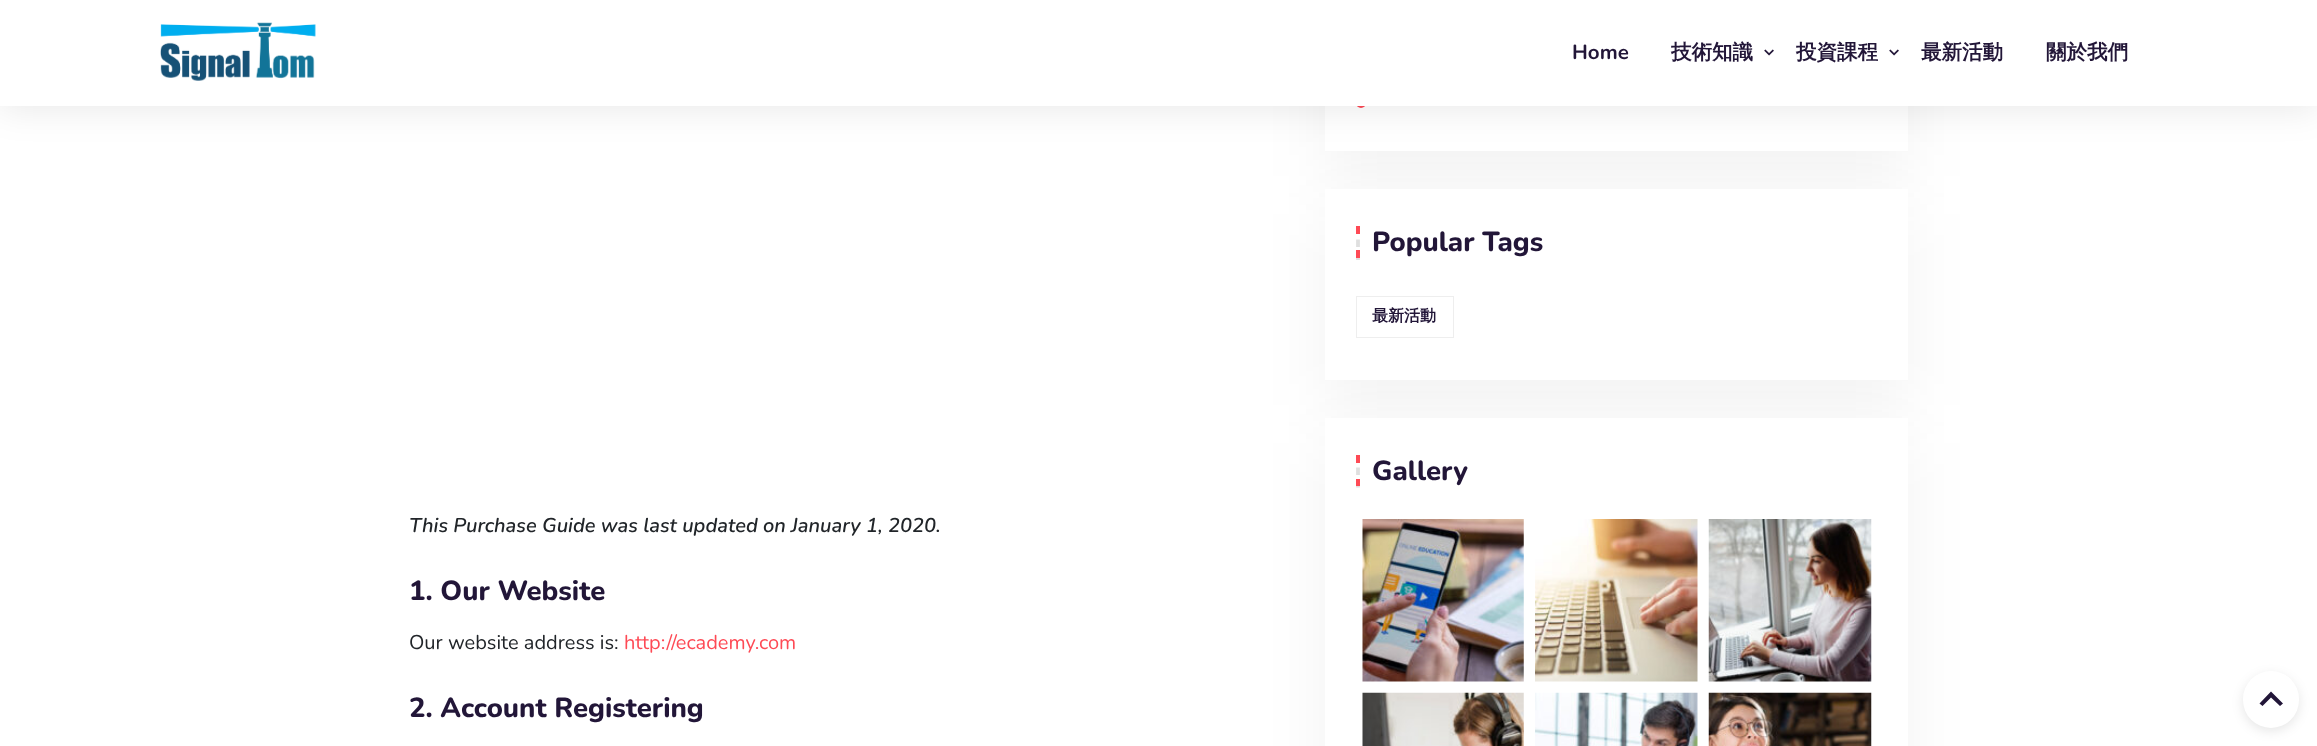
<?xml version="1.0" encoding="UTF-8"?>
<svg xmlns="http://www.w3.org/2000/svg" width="2317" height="746">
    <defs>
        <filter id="blur1" x="-50%" y="-200%" width="200%" height="500%"><feGaussianBlur stdDeviation="31"/></filter>
        <filter id="blur2" x="-50%" y="-200%" width="200%" height="500%"><feGaussianBlur stdDeviation="17.5"/></filter>
        <filter id="blur3" x="-50%" y="-200%" width="200%" height="500%"><feGaussianBlur stdDeviation="6"/></filter>
    </defs>
    <rect width="100%" height="100%" fill="#FFFFFF"/>
    <rect x="1325" y="-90" width="583" height="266" fill="#000000" fill-opacity="0.05" filter="url(#blur1)"/>
    <rect x="1325" y="106" width="583" height="45" fill="#FFFFFF"/>
    <circle cx="1361" cy="103" r="5" fill="#FE4A55"/>
    <rect x="0" y="3" width="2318" height="106" fill="#000000" fill-opacity="0.09" filter="url(#blur2)"/>
    <rect x="0" y="0" width="2317" height="106" fill="#FFFFFF"/>
    <image x="160" y="22" width="156" height="59" href="img_01.png"/>
    <text x="1572" y="59" font-family="Nunito" font-size="20.5" font-weight="700" fill="#221638">Home</text>
    <text x="1671" y="59" font-family="WenQuanYi Zen Hei" font-size="20.5" font-weight="700" fill="#221638">技術知識</text>
    <image x="1764" y="49" width="10" height="7" href="img_02.png"/>
    <text x="1796" y="59" font-family="WenQuanYi Zen Hei" font-size="20.5" font-weight="700" fill="#221638">投資課程</text>
    <image x="1889" y="49" width="10" height="7" href="img_02.png"/>
    <text x="1921" y="59" font-family="WenQuanYi Zen Hei" font-size="20.5" font-weight="700" fill="#221638">最新活動</text>
    <text x="2046" y="59" font-family="WenQuanYi Zen Hei" font-size="20.5" font-weight="700" fill="#221638">關於我們</text>
    <rect x="1325" y="214" width="583" height="191" fill="#000000" fill-opacity="0.05" filter="url(#blur1)"/>
    <rect x="1325" y="189" width="583" height="191" fill="#FFFFFF"/>
    <path d="M 1358 226 V 234 M 1358 239.5 V 247 M 1358 252.5 V 260" fill="none" stroke="#DFDFDF" stroke-width="3.8"/>
    <rect x="1356" y="226" width="4" height="8" fill="#FE4A55"/>
    <rect x="1356" y="250" width="4" height="8" fill="#FE4A55"/>
    <text x="1372" y="251" font-family="Nunito" font-size="27.5" font-weight="800" fill="#221638">Popular Tags</text>
    <rect x="1356.5" y="296.5" width="97" height="41" fill="none" stroke="#EEEEEE"/>
    <text x="1372" y="321" font-family="WenQuanYi Zen Hei" font-size="16" font-weight="700" fill="#221638">最新活動</text>
    <rect x="1325" y="443" width="583" height="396" fill="#000000" fill-opacity="0.05" filter="url(#blur1)"/>
    <rect x="1325" y="418" width="583" height="328" fill="#FFFFFF"/>
    <path d="M 1358 455 V 462.5 M 1358 467.5 V 475 M 1358 480 V 487.5" fill="none" stroke="#DFDFDF" stroke-width="3.8"/>
    <rect x="1356" y="455" width="4" height="8" fill="#FE4A55"/>
    <rect x="1356" y="479" width="4" height="7" fill="#FE4A55"/>
    <text x="1372" y="480" font-family="Nunito" font-size="27.5" font-weight="800" fill="#221638">Gallery</text>
    <image x="1362" y="519" width="162" height="163" href="img_03.png"/>
    <image x="1535" y="519" width="163" height="163" href="img_04.png"/>
    <image x="1708" y="519" width="164" height="163" href="img_05.png"/>
    <image x="1362" y="692" width="162" height="54" href="img_06.png"/>
    <image x="1535" y="692" width="163" height="54" href="img_07.png"/>
    <image x="1708" y="692" width="164" height="54" href="img_08.png"/>
    <text x="409" y="532" font-family="Nunito" font-size="20" font-weight="600" font-style="italic" fill="#212529">This Purchase Guide was last updated on January 1, 2020.</text>
    <text x="409" y="600" font-family="Nunito" font-size="27.5" font-weight="800" fill="#221638">1. Our Website</text>
    <text x="409" y="649" font-family="Nunito" font-size="20" font-weight="200" fill="#212529">Our website address is:</text>
    <text x="624" y="649" font-family="Nunito" font-size="20" font-weight="200" fill="#FE4A55">http://ecademy.com</text>
    <text x="409" y="717" font-family="Nunito" font-size="27.5" font-weight="800" fill="#221638">2. Account Registering</text>
    <rect x="2243" y="675" width="56" height="56" rx="28" fill="#000000" fill-opacity="0.1" filter="url(#blur3)"/>
    <rect x="2243" y="671" width="56" height="57" rx="28" fill="#FFFFFF"/>
    <path d="M 2259.5 703.5 L 2262.5 706 L 2271 697.5 L 2280 706 L 2283 703.5 L 2271 691.5 Z" fill="#221638"/>
</svg>
